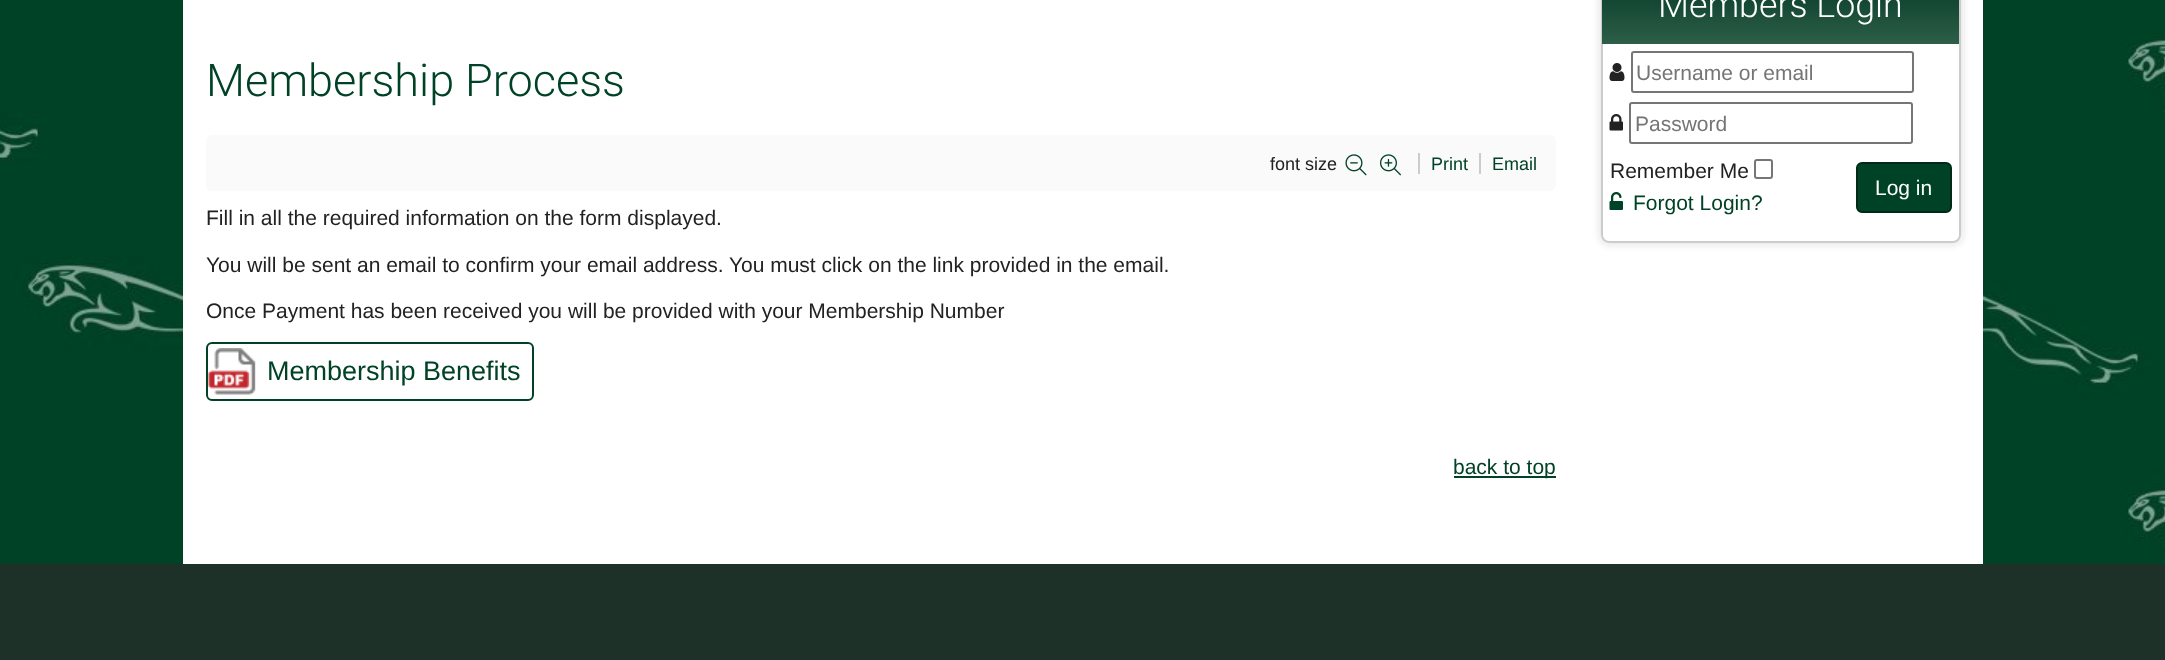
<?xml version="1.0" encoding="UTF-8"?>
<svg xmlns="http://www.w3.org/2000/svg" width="2165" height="660">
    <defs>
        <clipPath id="clip1"><path d="M 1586 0 H 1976 V 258 H 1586 Z M 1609 -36 H 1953 C 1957.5 -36 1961 -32.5 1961 -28 V 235 C 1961 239.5 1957.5 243 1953 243 H 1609 C 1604.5 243 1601 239.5 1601 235 V -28 C 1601 -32.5 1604.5 -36 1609 -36 Z" clip-rule="evenodd"/></clipPath>
        <filter id="blur1" x="-50%" y="-200%" width="200%" height="500%"><feGaussianBlur stdDeviation="4.5"/></filter>
        <linearGradient id="g1" gradientUnits="userSpaceOnUse" x1="1781" y1="-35" x2="1781" y2="44"><stop offset="0" stop-color="#01351F"/><stop offset="1" stop-color="#2C5E48"/></linearGradient>
    </defs>
    <rect width="100%" height="100%" fill="#004225"/>
    <image x="0" y="33" width="2165" height="531" href="img_01.png"/>
    <rect x="183" y="0" width="1800" height="564" fill="#FFFFFF"/>
    <text x="206" y="96" font-family="Roboto" font-size="45" font-weight="300" fill="#004225">Membership Process</text>
    <rect x="206" y="135" width="1350" height="56" rx="6" fill="#FAFAFA"/>
    <text x="1270" y="170" font-family="Liberation Sans" font-size="18" fill="#222222">font size</text>
    <image x="1345" y="154" width="22" height="22" href="img_02.png"/>
    <image x="1379" y="154" width="22" height="22" href="img_03.png"/>
    <text x="1431" y="170" font-family="Liberation Sans" font-size="18" fill="#004225">Print</text>
    <rect x="1418" y="153" width="2" height="21" fill="#CCCCCC"/>
    <text x="1492" y="170" font-family="Liberation Sans" font-size="18" fill="#004225">Email</text>
    <rect x="1479" y="153" width="2" height="21" fill="#CCCCCC"/>
    <text x="206" y="225" font-family="Liberation Sans" font-size="21" fill="#222222">Fill in all the required information on the form displayed.</text>
    <text x="206" y="272" font-family="Liberation Sans" font-size="21" fill="#222222">You will be sent an email to confirm your email address. You must click on the link provided in the email.</text>
    <text x="206" y="318" font-family="Liberation Sans" font-size="21" fill="#222222">Once Payment has been received you will be provided with your Membership Number</text>
    <image x="208" y="348" width="48" height="47" href="img_04.png"/>
    <rect x="207" y="343" width="326" height="57" rx="5" fill="none" stroke="#004226" stroke-width="2"/>
    <text x="267" y="380" font-family="Liberation Sans" font-size="27" fill="#004225">Membership Benefits</text>
    <rect x="1454" y="476" width="102" height="2" fill="#004225"/>
    <text x="1453" y="474" font-family="Liberation Sans" font-size="21" fill="#004225">back to top</text>
    <g clip-path="url(#clip1)">
        <rect x="1601" y="-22" width="360" height="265" rx="8" fill="#323232" fill-opacity="0.2" filter="url(#blur1)"/>
    </g>
    <rect x="1602" y="-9" width="358" height="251" rx="7" fill="none" stroke="#CCCCCC" stroke-width="2"/>
    <rect x="1602" y="0" width="357" height="44" fill="url(#g1)"/>
    <text x="1658" y="17" font-family="Roboto" font-size="35.75" font-weight="300" fill="#FFFFFF">Members Login</text>
    <image x="1609" y="63" width="16" height="18" href="img_05.png"/>
    <rect x="1632" y="52" width="281" height="40" rx="2" fill="none" stroke="#767676" stroke-width="2"/>
    <text x="1636" y="80" font-family="Liberation Sans" font-size="21" fill="#757575">Username or email</text>
    <image x="1609" y="114" width="14" height="17" href="img_06.png"/>
    <rect x="1630" y="103" width="282" height="40" rx="2" fill="none" stroke="#767676" stroke-width="2"/>
    <text x="1635" y="131" font-family="Liberation Sans" font-size="21" fill="#757575">Password</text>
    <text x="1610" y="178" font-family="Liberation Sans" font-size="21" fill="#222222">Remember Me</text>
    <rect x="1755" y="160" width="17" height="18" rx="2" fill="none" stroke="#767676" stroke-width="2"/>
    <rect x="1857" y="163" width="94" height="49" rx="5" fill="#004225" stroke="#002917" stroke-width="2"/>
    <text x="1875" y="195" font-family="Liberation Sans" font-size="21" fill="#FFFFFF">Log in</text>
    <image x="1609" y="192" width="14" height="18" href="img_07.png"/>
    <text x="1633" y="210" font-family="Liberation Sans" font-size="21" fill="#004225">Forgot Login?</text>
    <rect x="0" y="564" width="2165" height="96" fill="#1D3128"/>
</svg>
